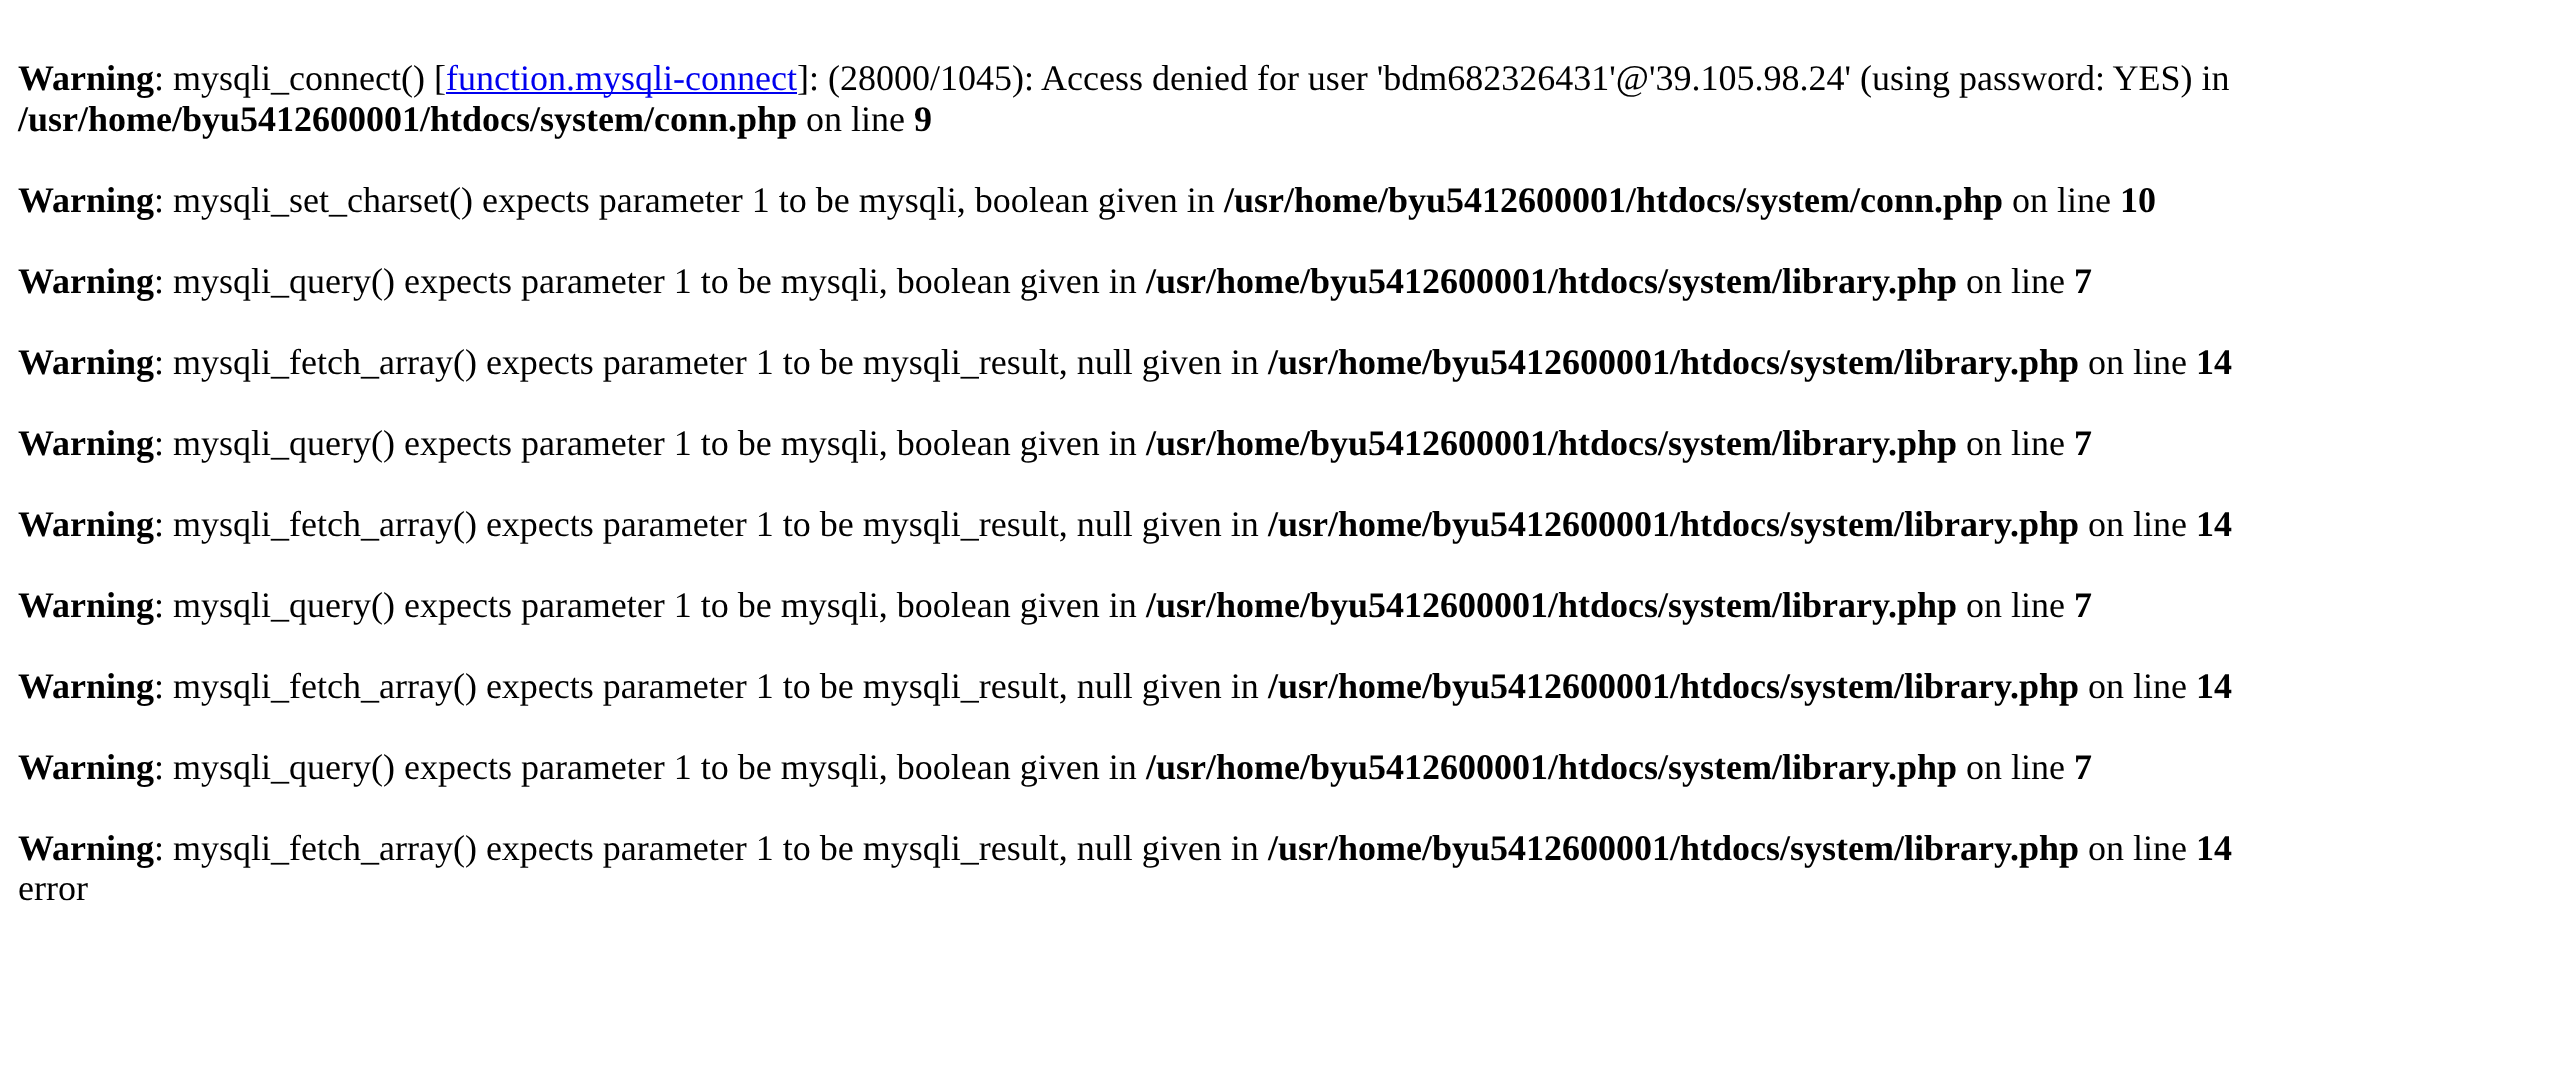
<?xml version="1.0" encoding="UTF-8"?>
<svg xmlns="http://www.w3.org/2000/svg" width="2556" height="1081">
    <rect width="100%" height="100%" fill="#FFFFFF"/>
    <text x="18" y="90" font-family="Liberation Serif" font-size="36" font-weight="700" fill="#000000">Warning</text>
    <text x="154" y="90" font-family="Liberation Serif" font-size="36" fill="#000000">: mysqli_connect() [</text>
    <rect x="446" y="92" width="351" height="2" fill="#0000EE"/>
    <text x="446" y="90" font-family="Liberation Serif" font-size="36" fill="#0000EE">function.mysqli-connect</text>
    <text x="797" y="90" font-family="Liberation Serif" font-size="36" fill="#000000">]: (28000/1045): Access denied for user 'bdm682326431'@'39.105.98.24' (using password: YES) in</text>
    <text x="18" y="131" font-family="Liberation Serif" font-size="36" font-weight="700" fill="#000000">/usr/home/byu5412600001/htdocs/system/conn.php</text>
    <text x="806" y="131" font-family="Liberation Serif" font-size="36" fill="#000000">on line</text>
    <text x="914" y="131" font-family="Liberation Serif" font-size="36" font-weight="700" fill="#000000">9</text>
    <text x="18" y="212" font-family="Liberation Serif" font-size="36" font-weight="700" fill="#000000">Warning</text>
    <text x="154" y="212" font-family="Liberation Serif" font-size="36" fill="#000000">: mysqli_set_charset() expects parameter 1 to be mysqli, boolean given in</text>
    <text x="1224" y="212" font-family="Liberation Serif" font-size="36" font-weight="700" fill="#000000">/usr/home/byu5412600001/htdocs/system/conn.php</text>
    <text x="2012" y="212" font-family="Liberation Serif" font-size="36" fill="#000000">on line</text>
    <text x="2120" y="212" font-family="Liberation Serif" font-size="36" font-weight="700" fill="#000000">10</text>
    <text x="18" y="293" font-family="Liberation Serif" font-size="36" font-weight="700" fill="#000000">Warning</text>
    <text x="154" y="293" font-family="Liberation Serif" font-size="36" fill="#000000">: mysqli_query() expects parameter 1 to be mysqli, boolean given in</text>
    <text x="1146" y="293" font-family="Liberation Serif" font-size="36" font-weight="700" fill="#000000">/usr/home/byu5412600001/htdocs/system/library.php</text>
    <text x="1966" y="293" font-family="Liberation Serif" font-size="36" fill="#000000">on line</text>
    <text x="2074" y="293" font-family="Liberation Serif" font-size="36" font-weight="700" fill="#000000">7</text>
    <text x="18" y="374" font-family="Liberation Serif" font-size="36" font-weight="700" fill="#000000">Warning</text>
    <text x="154" y="374" font-family="Liberation Serif" font-size="36" fill="#000000">: mysqli_fetch_array() expects parameter 1 to be mysqli_result, null given in</text>
    <text x="1268" y="374" font-family="Liberation Serif" font-size="36" font-weight="700" fill="#000000">/usr/home/byu5412600001/htdocs/system/library.php</text>
    <text x="2088" y="374" font-family="Liberation Serif" font-size="36" fill="#000000">on line</text>
    <text x="2196" y="374" font-family="Liberation Serif" font-size="36" font-weight="700" fill="#000000">14</text>
    <text x="18" y="455" font-family="Liberation Serif" font-size="36" font-weight="700" fill="#000000">Warning</text>
    <text x="154" y="455" font-family="Liberation Serif" font-size="36" fill="#000000">: mysqli_query() expects parameter 1 to be mysqli, boolean given in</text>
    <text x="1146" y="455" font-family="Liberation Serif" font-size="36" font-weight="700" fill="#000000">/usr/home/byu5412600001/htdocs/system/library.php</text>
    <text x="1966" y="455" font-family="Liberation Serif" font-size="36" fill="#000000">on line</text>
    <text x="2074" y="455" font-family="Liberation Serif" font-size="36" font-weight="700" fill="#000000">7</text>
    <text x="18" y="536" font-family="Liberation Serif" font-size="36" font-weight="700" fill="#000000">Warning</text>
    <text x="154" y="536" font-family="Liberation Serif" font-size="36" fill="#000000">: mysqli_fetch_array() expects parameter 1 to be mysqli_result, null given in</text>
    <text x="1268" y="536" font-family="Liberation Serif" font-size="36" font-weight="700" fill="#000000">/usr/home/byu5412600001/htdocs/system/library.php</text>
    <text x="2088" y="536" font-family="Liberation Serif" font-size="36" fill="#000000">on line</text>
    <text x="2196" y="536" font-family="Liberation Serif" font-size="36" font-weight="700" fill="#000000">14</text>
    <text x="18" y="617" font-family="Liberation Serif" font-size="36" font-weight="700" fill="#000000">Warning</text>
    <text x="154" y="617" font-family="Liberation Serif" font-size="36" fill="#000000">: mysqli_query() expects parameter 1 to be mysqli, boolean given in</text>
    <text x="1146" y="617" font-family="Liberation Serif" font-size="36" font-weight="700" fill="#000000">/usr/home/byu5412600001/htdocs/system/library.php</text>
    <text x="1966" y="617" font-family="Liberation Serif" font-size="36" fill="#000000">on line</text>
    <text x="2074" y="617" font-family="Liberation Serif" font-size="36" font-weight="700" fill="#000000">7</text>
    <text x="18" y="698" font-family="Liberation Serif" font-size="36" font-weight="700" fill="#000000">Warning</text>
    <text x="154" y="698" font-family="Liberation Serif" font-size="36" fill="#000000">: mysqli_fetch_array() expects parameter 1 to be mysqli_result, null given in</text>
    <text x="1268" y="698" font-family="Liberation Serif" font-size="36" font-weight="700" fill="#000000">/usr/home/byu5412600001/htdocs/system/library.php</text>
    <text x="2088" y="698" font-family="Liberation Serif" font-size="36" fill="#000000">on line</text>
    <text x="2196" y="698" font-family="Liberation Serif" font-size="36" font-weight="700" fill="#000000">14</text>
    <text x="18" y="779" font-family="Liberation Serif" font-size="36" font-weight="700" fill="#000000">Warning</text>
    <text x="154" y="779" font-family="Liberation Serif" font-size="36" fill="#000000">: mysqli_query() expects parameter 1 to be mysqli, boolean given in</text>
    <text x="1146" y="779" font-family="Liberation Serif" font-size="36" font-weight="700" fill="#000000">/usr/home/byu5412600001/htdocs/system/library.php</text>
    <text x="1966" y="779" font-family="Liberation Serif" font-size="36" fill="#000000">on line</text>
    <text x="2074" y="779" font-family="Liberation Serif" font-size="36" font-weight="700" fill="#000000">7</text>
    <text x="18" y="860" font-family="Liberation Serif" font-size="36" font-weight="700" fill="#000000">Warning</text>
    <text x="154" y="860" font-family="Liberation Serif" font-size="36" fill="#000000">: mysqli_fetch_array() expects parameter 1 to be mysqli_result, null given in</text>
    <text x="1268" y="860" font-family="Liberation Serif" font-size="36" font-weight="700" fill="#000000">/usr/home/byu5412600001/htdocs/system/library.php</text>
    <text x="2088" y="860" font-family="Liberation Serif" font-size="36" fill="#000000">on line</text>
    <text x="2196" y="860" font-family="Liberation Serif" font-size="36" font-weight="700" fill="#000000">14</text>
    <text x="18" y="900" font-family="Liberation Serif" font-size="36" fill="#000000">error</text>
</svg>
